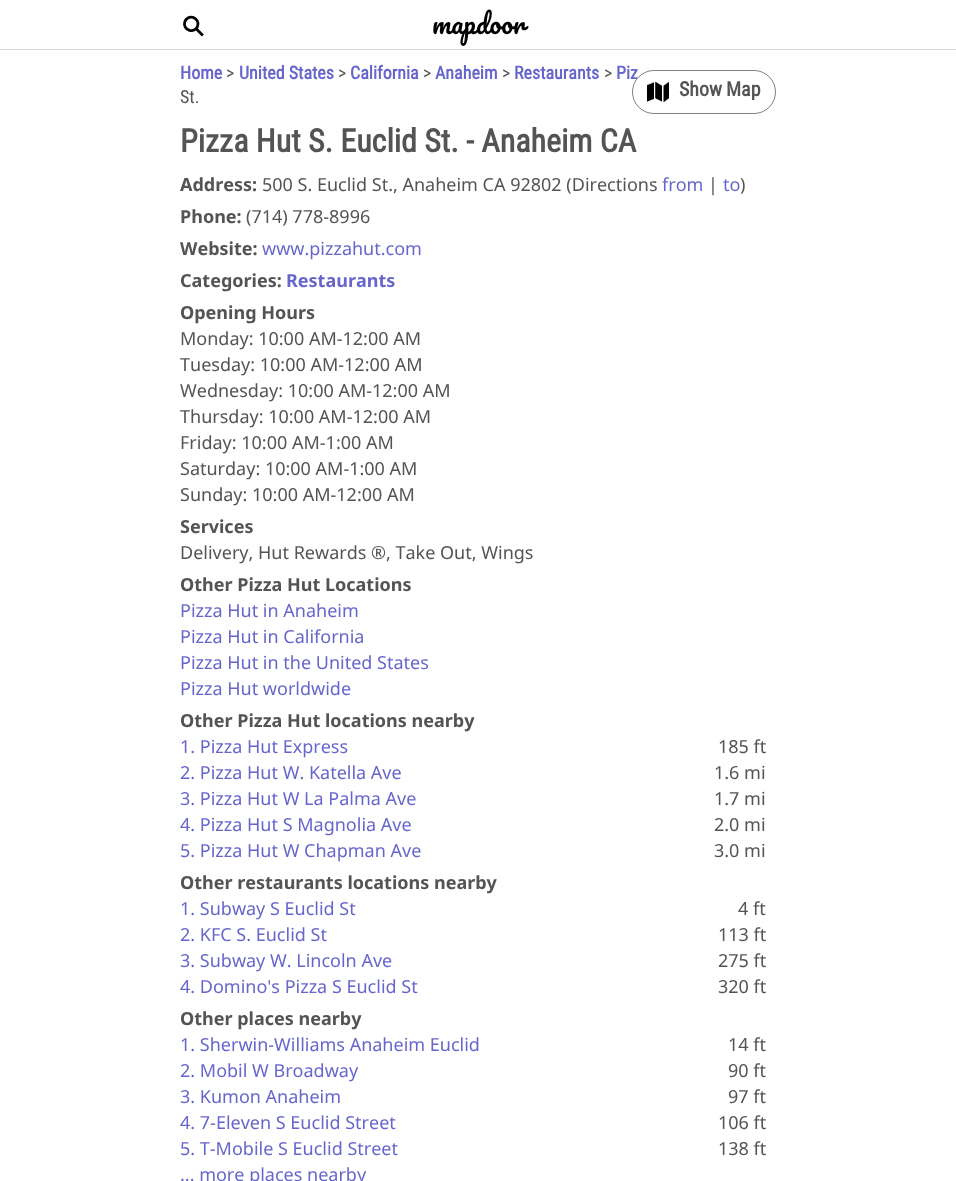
<?xml version="1.0" encoding="UTF-8"?>
<svg xmlns="http://www.w3.org/2000/svg" width="956" height="1181">
    <style>*{font-kerning:none!important;font-variant-ligatures:none!important}</style>
    <rect width="100%" height="100%" fill="#FFFFFF"/>
    <text x="186" y="12" transform="rotate(105 186 12)" font-family="DejaVu Sans" font-size="32" fill="#000000">☌</text>
    <text x="432" y="34" font-family="Pacifico" font-size="26" fill="#000000">mapdoor</text>
    <text x="616" y="79" font-family="Roboto Condensed" font-size="18" font-weight="700" fill="#6666CC">Piz</text>
    <rect x="632" y="70" width="144" height="44" rx="22" fill="#FFFFFF"/>
    <image x="647" y="81" width="22" height="22" href="img_01.png"/>
    <rect x="632.5" y="70.5" width="143" height="43" rx="21.5" fill="none" stroke="#808080"/>
    <text x="679" y="96" font-family="Roboto Condensed" font-size="20" font-weight="700" fill="#545454">Show</text>
    <text x="726" y="96" font-family="Roboto Condensed" font-size="20" font-weight="700" fill="#545454">Map</text>
    <rect x="0" y="49" width="956" height="1" fill="#D6D6D6"/>
    <text x="180" y="79" font-family="Roboto Condensed" font-size="18" font-weight="700" fill="#6666CC">Home</text>
    <text x="226" y="79" font-family="Roboto Condensed" font-size="18" fill="#545454">&gt;</text>
    <text x="239" y="79" font-family="Roboto Condensed" font-size="18" font-weight="700" fill="#6666CC">United States</text>
    <text x="338" y="79" font-family="Roboto Condensed" font-size="18" fill="#545454">&gt;</text>
    <text x="350" y="79" font-family="Roboto Condensed" font-size="18" font-weight="700" fill="#6666CC">California</text>
    <text x="423" y="79" font-family="Roboto Condensed" font-size="18" fill="#545454">&gt;</text>
    <text x="435" y="79" font-family="Roboto Condensed" font-size="18" font-weight="700" fill="#6666CC">Anaheim</text>
    <text x="502" y="79" font-family="Roboto Condensed" font-size="18" fill="#545454">&gt;</text>
    <text x="514" y="79" font-family="Roboto Condensed" font-size="18" font-weight="700" fill="#6666CC">Restaurants</text>
    <text x="604" y="79" font-family="Roboto Condensed" font-size="18" fill="#545454">&gt;</text>
    <text x="180" y="103" font-family="Roboto Condensed" font-size="18" fill="#545454">St.</text>
    <text x="180" y="152" font-family="Roboto Condensed" font-size="32" font-weight="700" fill="#545454">Pizza Hut S. Euclid St. - Anaheim CA</text>
    <text x="180" y="191" font-family="Noto Sans" font-size="18" font-weight="700" fill="#545454">Address:</text>
    <text x="262" y="191" font-family="Noto Sans" font-size="18" fill="#545454">500 S. Euclid St., Anaheim CA 92802 (Directions</text>
    <text x="662" y="191" font-family="Noto Sans" font-size="18" fill="#6666CC">from</text>
    <text x="708" y="191" font-family="Noto Sans" font-size="18" fill="#545454">|</text>
    <text x="723" y="191" font-family="Noto Sans" font-size="18" fill="#6666CC">to</text>
    <text x="740" y="191" font-family="Noto Sans" font-size="18" fill="#545454">)</text>
    <text x="180" y="223" font-family="Noto Sans" font-size="18" font-weight="700" fill="#545454">Phone:</text>
    <text x="246" y="223" font-family="Noto Sans" font-size="18" fill="#545454">(714) 778-8996</text>
    <text x="180" y="255" font-family="Noto Sans" font-size="18" font-weight="700" fill="#545454">Website:</text>
    <text x="262" y="255" font-family="Noto Sans" font-size="18" fill="#6666CC">www.pizzahut.com</text>
    <text x="180" y="287" font-family="Noto Sans" font-size="18" font-weight="700" fill="#545454">Categories:</text>
    <text x="286" y="287" font-family="Noto Sans" font-size="18" font-weight="700" fill="#6666CC">Restaurants</text>
    <text x="180" y="319" font-family="Noto Sans" font-size="18" font-weight="700" fill="#545454">Opening Hours</text>
    <text font-family="Noto Sans" font-size="18" fill="#545454">
        <tspan x="180" y="345">Monday: 10:00 AM-12:00 AM</tspan>
        <tspan x="180" y="371">Tuesday: 10:00 AM-12:00 AM</tspan>
        <tspan x="180" y="397">Wednesday: 10:00 AM-12:00 AM</tspan>
        <tspan x="180" y="423">Thursday: 10:00 AM-12:00 AM</tspan>
        <tspan x="180" y="449">Friday: 10:00 AM-1:00 AM</tspan>
        <tspan x="180" y="475">Saturday: 10:00 AM-1:00 AM</tspan>
        <tspan x="180" y="501">Sunday: 10:00 AM-12:00 AM</tspan>
    </text>
    <text x="180" y="533" font-family="Noto Sans" font-size="18" font-weight="700" fill="#545454">Services</text>
    <text x="180" y="559" font-family="Noto Sans" font-size="18" fill="#545454">Delivery, Hut Rewards ®, Take Out, Wings</text>
    <text x="180" y="591" font-family="Noto Sans" font-size="18" font-weight="700" fill="#545454">Other Pizza Hut Locations</text>
    <text font-family="Noto Sans" font-size="18" fill="#6666CC">
        <tspan x="180" y="617">Pizza Hut in Anaheim</tspan>
        <tspan x="180" y="643">Pizza Hut in California</tspan>
        <tspan x="180" y="669">Pizza Hut in the United States</tspan>
        <tspan x="180" y="695">Pizza Hut worldwide</tspan>
    </text>
    <text x="180" y="727" font-family="Noto Sans" font-size="18" font-weight="700" fill="#545454">Other Pizza Hut locations nearby</text>
    <text x="180" y="753" font-family="Noto Sans" font-size="18" fill="#6666CC">1. Pizza Hut Express</text>
    <text x="718" y="753" font-family="Noto Sans" font-size="18" fill="#545454">185 ft</text>
    <text x="180" y="779" font-family="Noto Sans" font-size="18" fill="#6666CC">2. Pizza Hut W. Katella Ave</text>
    <text x="714" y="779" font-family="Noto Sans" font-size="18" fill="#545454">1.6 mi</text>
    <text x="180" y="805" font-family="Noto Sans" font-size="18" fill="#6666CC">3. Pizza Hut W La Palma Ave</text>
    <text x="714" y="805" font-family="Noto Sans" font-size="18" fill="#545454">1.7 mi</text>
    <text x="180" y="831" font-family="Noto Sans" font-size="18" fill="#6666CC">4. Pizza Hut S Magnolia Ave</text>
    <text x="714" y="831" font-family="Noto Sans" font-size="18" fill="#545454">2.0 mi</text>
    <text x="180" y="857" font-family="Noto Sans" font-size="18" fill="#6666CC">5. Pizza Hut W Chapman Ave</text>
    <text x="714" y="857" font-family="Noto Sans" font-size="18" fill="#545454">3.0 mi</text>
    <text x="180" y="889" font-family="Noto Sans" font-size="18" font-weight="700" fill="#545454">Other restaurants locations nearby</text>
    <text x="180" y="915" font-family="Noto Sans" font-size="18" fill="#6666CC">1. Subway S Euclid St</text>
    <text x="738" y="915" font-family="Noto Sans" font-size="18" fill="#545454">4 ft</text>
    <text x="180" y="941" font-family="Noto Sans" font-size="18" fill="#6666CC">2. KFC S. Euclid St</text>
    <text x="718" y="941" font-family="Noto Sans" font-size="18" fill="#545454">113 ft</text>
    <text x="180" y="967" font-family="Noto Sans" font-size="18" fill="#6666CC">3. Subway W. Lincoln Ave</text>
    <text x="718" y="967" font-family="Noto Sans" font-size="18" fill="#545454">275 ft</text>
    <text x="180" y="993" font-family="Noto Sans" font-size="18" fill="#6666CC">4. Domino's Pizza S Euclid St</text>
    <text x="718" y="993" font-family="Noto Sans" font-size="18" fill="#545454">320 ft</text>
    <text x="180" y="1025" font-family="Noto Sans" font-size="18" font-weight="700" fill="#545454">Other places nearby</text>
    <text x="180" y="1051" font-family="Noto Sans" font-size="18" fill="#6666CC">1. Sherwin-Williams Anaheim Euclid</text>
    <text x="728" y="1051" font-family="Noto Sans" font-size="18" fill="#545454">14 ft</text>
    <text x="180" y="1077" font-family="Noto Sans" font-size="18" fill="#6666CC">2. Mobil W Broadway</text>
    <text x="728" y="1077" font-family="Noto Sans" font-size="18" fill="#545454">90 ft</text>
    <text x="180" y="1103" font-family="Noto Sans" font-size="18" fill="#6666CC">3. Kumon Anaheim</text>
    <text x="728" y="1103" font-family="Noto Sans" font-size="18" fill="#545454">97 ft</text>
    <text x="180" y="1129" font-family="Noto Sans" font-size="18" fill="#6666CC">4. 7-Eleven S Euclid Street</text>
    <text x="718" y="1129" font-family="Noto Sans" font-size="18" fill="#545454">106 ft</text>
    <text x="180" y="1155" font-family="Noto Sans" font-size="18" fill="#6666CC">5. T-Mobile S Euclid Street</text>
    <text x="718" y="1155" font-family="Noto Sans" font-size="18" fill="#545454">138 ft</text>
    <text x="180" y="1181" font-family="Noto Sans" font-size="18" fill="#6666CC">... more places nearby</text>
</svg>
